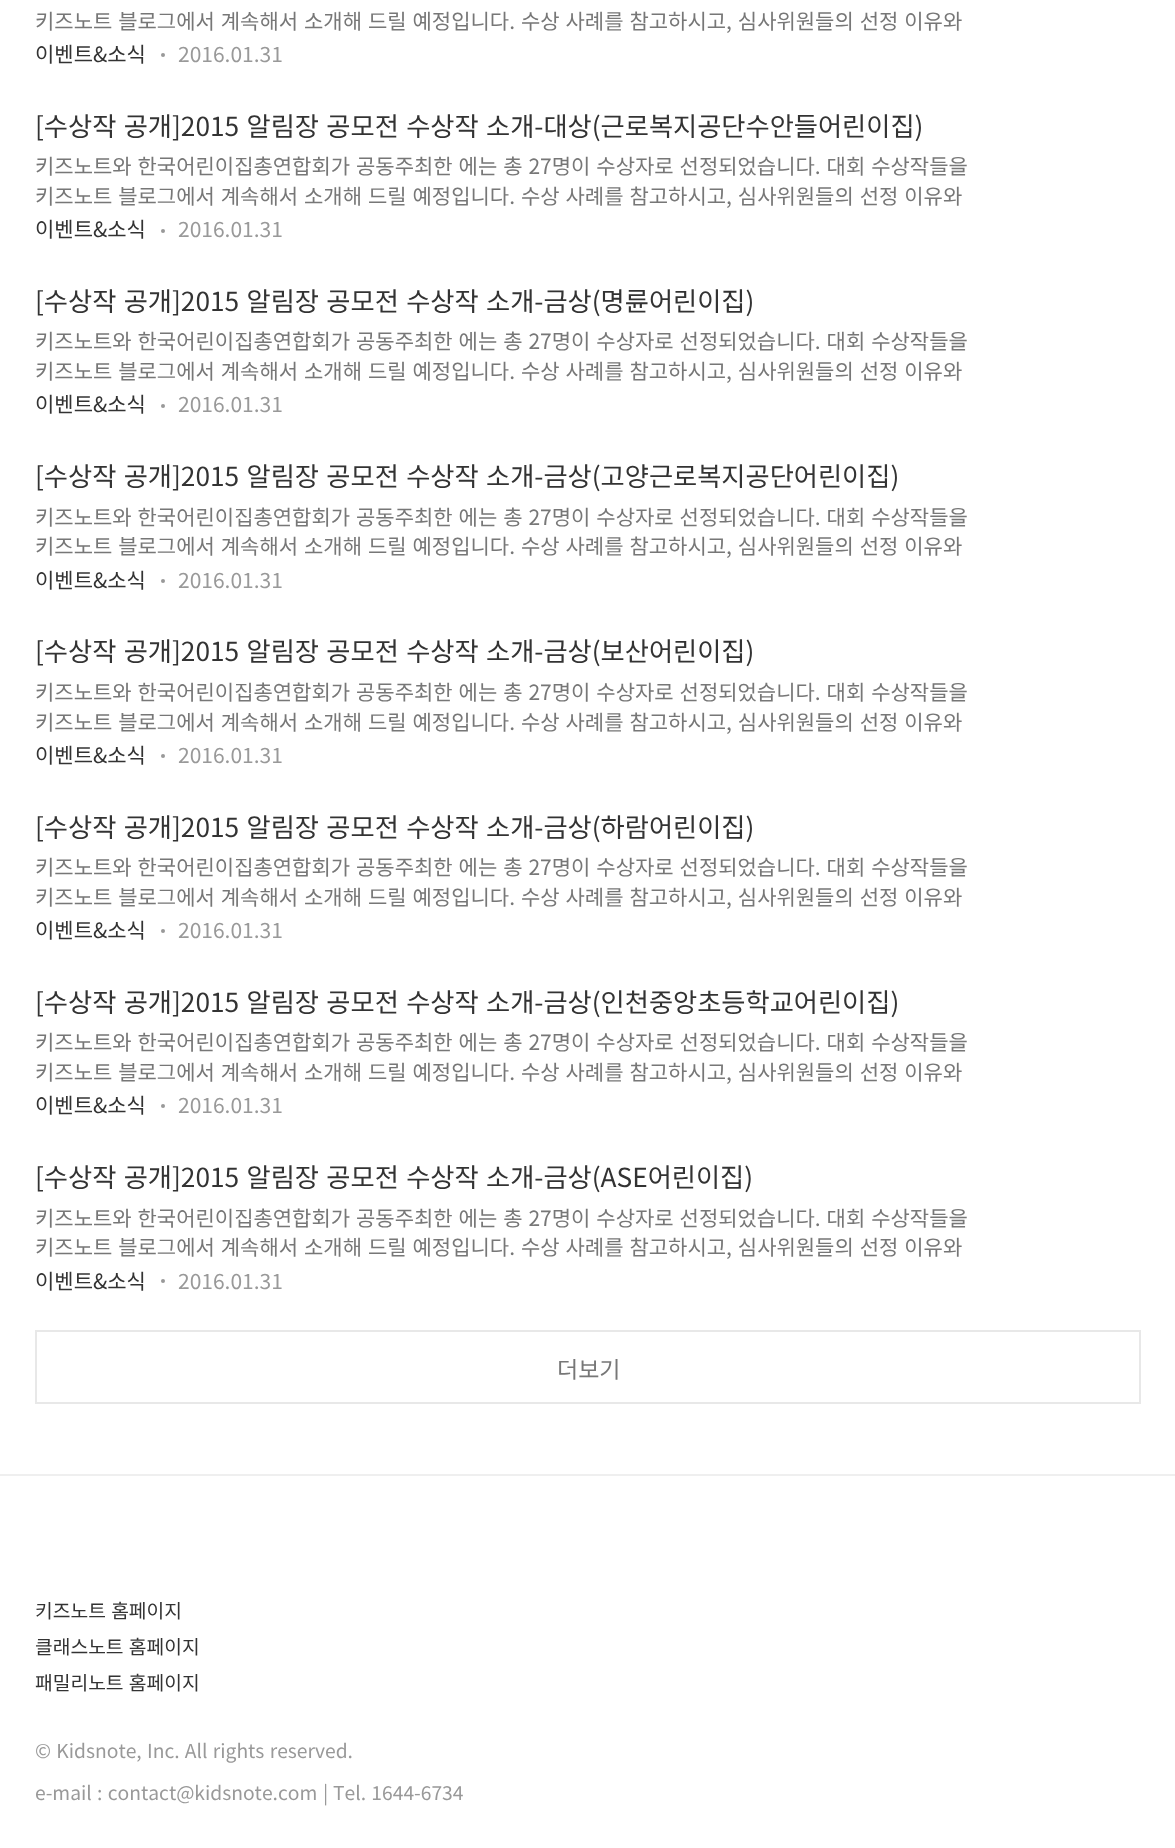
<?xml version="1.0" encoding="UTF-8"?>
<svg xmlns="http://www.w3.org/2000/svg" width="1175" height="1848">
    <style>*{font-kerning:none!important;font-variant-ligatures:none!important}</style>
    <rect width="100%" height="100%" fill="#FFFFFF"/>
    <text x="35" y="29" word-spacing="1.25" font-family="Noto Sans KR" font-size="21" fill="#777777">키즈노트 블로그에서 계속해서 소개해 드릴 예정입니다. 수상 사례를 참고하시고, 심사위원들의 선정 이유와</text>
    <text x="35" y="62" font-family="Noto Sans KR" font-size="21" fill="#333333">이벤트&amp;소식</text>
    <circle cx="163" cy="55" r="2" fill="#999999"/>
    <text x="178" y="62" font-family="Noto Sans KR" font-size="21" fill="#999999">2016.01.31</text>
    <text x="35" y="136" word-spacing="1.5" font-family="Noto Sans KR" font-size="26.25" fill="#333333">[수상작 공개]2015 알림장 공모전 수상작 소개-대상(근로복지공단수안들어린이집)</text>
    <text font-family="Noto Sans KR" font-size="21" fill="#777777">
        <tspan x="35" y="174" word-spacing="1.25">키즈노트와 한국어린이집총연합회가 공동주최한 에는 총 27명이 수상자로 선정되었습니다. 대회 수상작들을</tspan>
        <tspan x="35" y="204" word-spacing="1.25">키즈노트 블로그에서 계속해서 소개해 드릴 예정입니다. 수상 사례를 참고하시고, 심사위원들의 선정 이유와</tspan>
    </text>
    <text x="35" y="237" font-family="Noto Sans KR" font-size="21" fill="#333333">이벤트&amp;소식</text>
    <circle cx="163" cy="231" r="2" fill="#999999"/>
    <text x="178" y="237" font-family="Noto Sans KR" font-size="21" fill="#999999">2016.01.31</text>
    <text x="35" y="311" word-spacing="1.5" font-family="Noto Sans KR" font-size="26.25" fill="#333333">[수상작 공개]2015 알림장 공모전 수상작 소개-금상(명륜어린이집)</text>
    <text font-family="Noto Sans KR" font-size="21" fill="#777777">
        <tspan x="35" y="349" word-spacing="1.25">키즈노트와 한국어린이집총연합회가 공동주최한 에는 총 27명이 수상자로 선정되었습니다. 대회 수상작들을</tspan>
        <tspan x="35" y="379" word-spacing="1.25">키즈노트 블로그에서 계속해서 소개해 드릴 예정입니다. 수상 사례를 참고하시고, 심사위원들의 선정 이유와</tspan>
    </text>
    <text x="35" y="412" font-family="Noto Sans KR" font-size="21" fill="#333333">이벤트&amp;소식</text>
    <circle cx="163" cy="406" r="2" fill="#999999"/>
    <text x="178" y="412" font-family="Noto Sans KR" font-size="21" fill="#999999">2016.01.31</text>
    <text x="35" y="486" word-spacing="1.5" font-family="Noto Sans KR" font-size="26.25" fill="#333333">[수상작 공개]2015 알림장 공모전 수상작 소개-금상(고양근로복지공단어린이집)</text>
    <text font-family="Noto Sans KR" font-size="21" fill="#777777">
        <tspan x="35" y="525" word-spacing="1.25">키즈노트와 한국어린이집총연합회가 공동주최한 에는 총 27명이 수상자로 선정되었습니다. 대회 수상작들을</tspan>
        <tspan x="35" y="554" word-spacing="1.25">키즈노트 블로그에서 계속해서 소개해 드릴 예정입니다. 수상 사례를 참고하시고, 심사위원들의 선정 이유와</tspan>
    </text>
    <text x="35" y="588" font-family="Noto Sans KR" font-size="21" fill="#333333">이벤트&amp;소식</text>
    <circle cx="163" cy="581" r="2" fill="#999999"/>
    <text x="178" y="588" font-family="Noto Sans KR" font-size="21" fill="#999999">2016.01.31</text>
    <text x="35" y="661" word-spacing="1.5" font-family="Noto Sans KR" font-size="26.25" fill="#333333">[수상작 공개]2015 알림장 공모전 수상작 소개-금상(보산어린이집)</text>
    <text font-family="Noto Sans KR" font-size="21" fill="#777777">
        <tspan x="35" y="700" word-spacing="1.25">키즈노트와 한국어린이집총연합회가 공동주최한 에는 총 27명이 수상자로 선정되었습니다. 대회 수상작들을</tspan>
        <tspan x="35" y="730" word-spacing="1.25">키즈노트 블로그에서 계속해서 소개해 드릴 예정입니다. 수상 사례를 참고하시고, 심사위원들의 선정 이유와</tspan>
    </text>
    <text x="35" y="763" font-family="Noto Sans KR" font-size="21" fill="#333333">이벤트&amp;소식</text>
    <circle cx="163" cy="756" r="2" fill="#999999"/>
    <text x="178" y="763" font-family="Noto Sans KR" font-size="21" fill="#999999">2016.01.31</text>
    <text x="35" y="837" word-spacing="1.5" font-family="Noto Sans KR" font-size="26.25" fill="#333333">[수상작 공개]2015 알림장 공모전 수상작 소개-금상(하람어린이집)</text>
    <text font-family="Noto Sans KR" font-size="21" fill="#777777">
        <tspan x="35" y="875" word-spacing="1.25">키즈노트와 한국어린이집총연합회가 공동주최한 에는 총 27명이 수상자로 선정되었습니다. 대회 수상작들을</tspan>
        <tspan x="35" y="905" word-spacing="1.25">키즈노트 블로그에서 계속해서 소개해 드릴 예정입니다. 수상 사례를 참고하시고, 심사위원들의 선정 이유와</tspan>
    </text>
    <text x="35" y="938" font-family="Noto Sans KR" font-size="21" fill="#333333">이벤트&amp;소식</text>
    <circle cx="163" cy="931" r="2" fill="#999999"/>
    <text x="178" y="938" font-family="Noto Sans KR" font-size="21" fill="#999999">2016.01.31</text>
    <text x="35" y="1012" word-spacing="1.5" font-family="Noto Sans KR" font-size="26.25" fill="#333333">[수상작 공개]2015 알림장 공모전 수상작 소개-금상(인천중앙초등학교어린이집)</text>
    <text font-family="Noto Sans KR" font-size="21" fill="#777777">
        <tspan x="35" y="1050" word-spacing="1.25">키즈노트와 한국어린이집총연합회가 공동주최한 에는 총 27명이 수상자로 선정되었습니다. 대회 수상작들을</tspan>
        <tspan x="35" y="1080" word-spacing="1.25">키즈노트 블로그에서 계속해서 소개해 드릴 예정입니다. 수상 사례를 참고하시고, 심사위원들의 선정 이유와</tspan>
    </text>
    <text x="35" y="1113" font-family="Noto Sans KR" font-size="21" fill="#333333">이벤트&amp;소식</text>
    <circle cx="163" cy="1106" r="2" fill="#999999"/>
    <text x="178" y="1113" font-family="Noto Sans KR" font-size="21" fill="#999999">2016.01.31</text>
    <text x="35" y="1187" word-spacing="1.5" font-family="Noto Sans KR" font-size="26.25" fill="#333333">[수상작 공개]2015 알림장 공모전 수상작 소개-금상(ASE어린이집)</text>
    <text font-family="Noto Sans KR" font-size="21" fill="#777777">
        <tspan x="35" y="1226" word-spacing="1.25">키즈노트와 한국어린이집총연합회가 공동주최한 에는 총 27명이 수상자로 선정되었습니다. 대회 수상작들을</tspan>
        <tspan x="35" y="1255" word-spacing="1.25">키즈노트 블로그에서 계속해서 소개해 드릴 예정입니다. 수상 사례를 참고하시고, 심사위원들의 선정 이유와</tspan>
    </text>
    <text x="35" y="1289" font-family="Noto Sans KR" font-size="21" fill="#333333">이벤트&amp;소식</text>
    <circle cx="163" cy="1281" r="2" fill="#999999"/>
    <text x="178" y="1289" font-family="Noto Sans KR" font-size="21" fill="#999999">2016.01.31</text>
    <rect x="36" y="1331" width="1104" height="72" fill="none" stroke="#E8E8E8" stroke-width="2"/>
    <text x="557" y="1378" font-family="Noto Sans KR" font-size="23" fill="#777777">더보기</text>
    <rect x="0" y="1474" width="1175" height="2" fill="#EFEFEF"/>
    <text font-family="Noto Sans KR" font-size="19.25" fill="#333333">
        <tspan x="35" y="1618" word-spacing="1">키즈노트 홈페이지</tspan>
        <tspan x="35" y="1654" word-spacing="1">클래스노트 홈페이지</tspan>
        <tspan x="35" y="1690" word-spacing="1">패밀리노트 홈페이지</tspan>
    </text>
    <text x="35" y="1758" word-spacing="1" font-family="Noto Sans KR" font-size="19.25" fill="#999999">© Kidsnote, Inc. All rights reserved.</text>
    <text x="35" y="1800" word-spacing="1" font-family="Noto Sans KR" font-size="19.25" fill="#999999">e-mail : contact@kidsnote.com</text>
    <text x="323" y="1800" font-family="Noto Sans KR" font-size="19.25" fill="#999999">|</text>
    <text x="333" y="1800" word-spacing="1" font-family="Noto Sans KR" font-size="19.25" fill="#999999">Tel. 1644-6734</text>
</svg>
